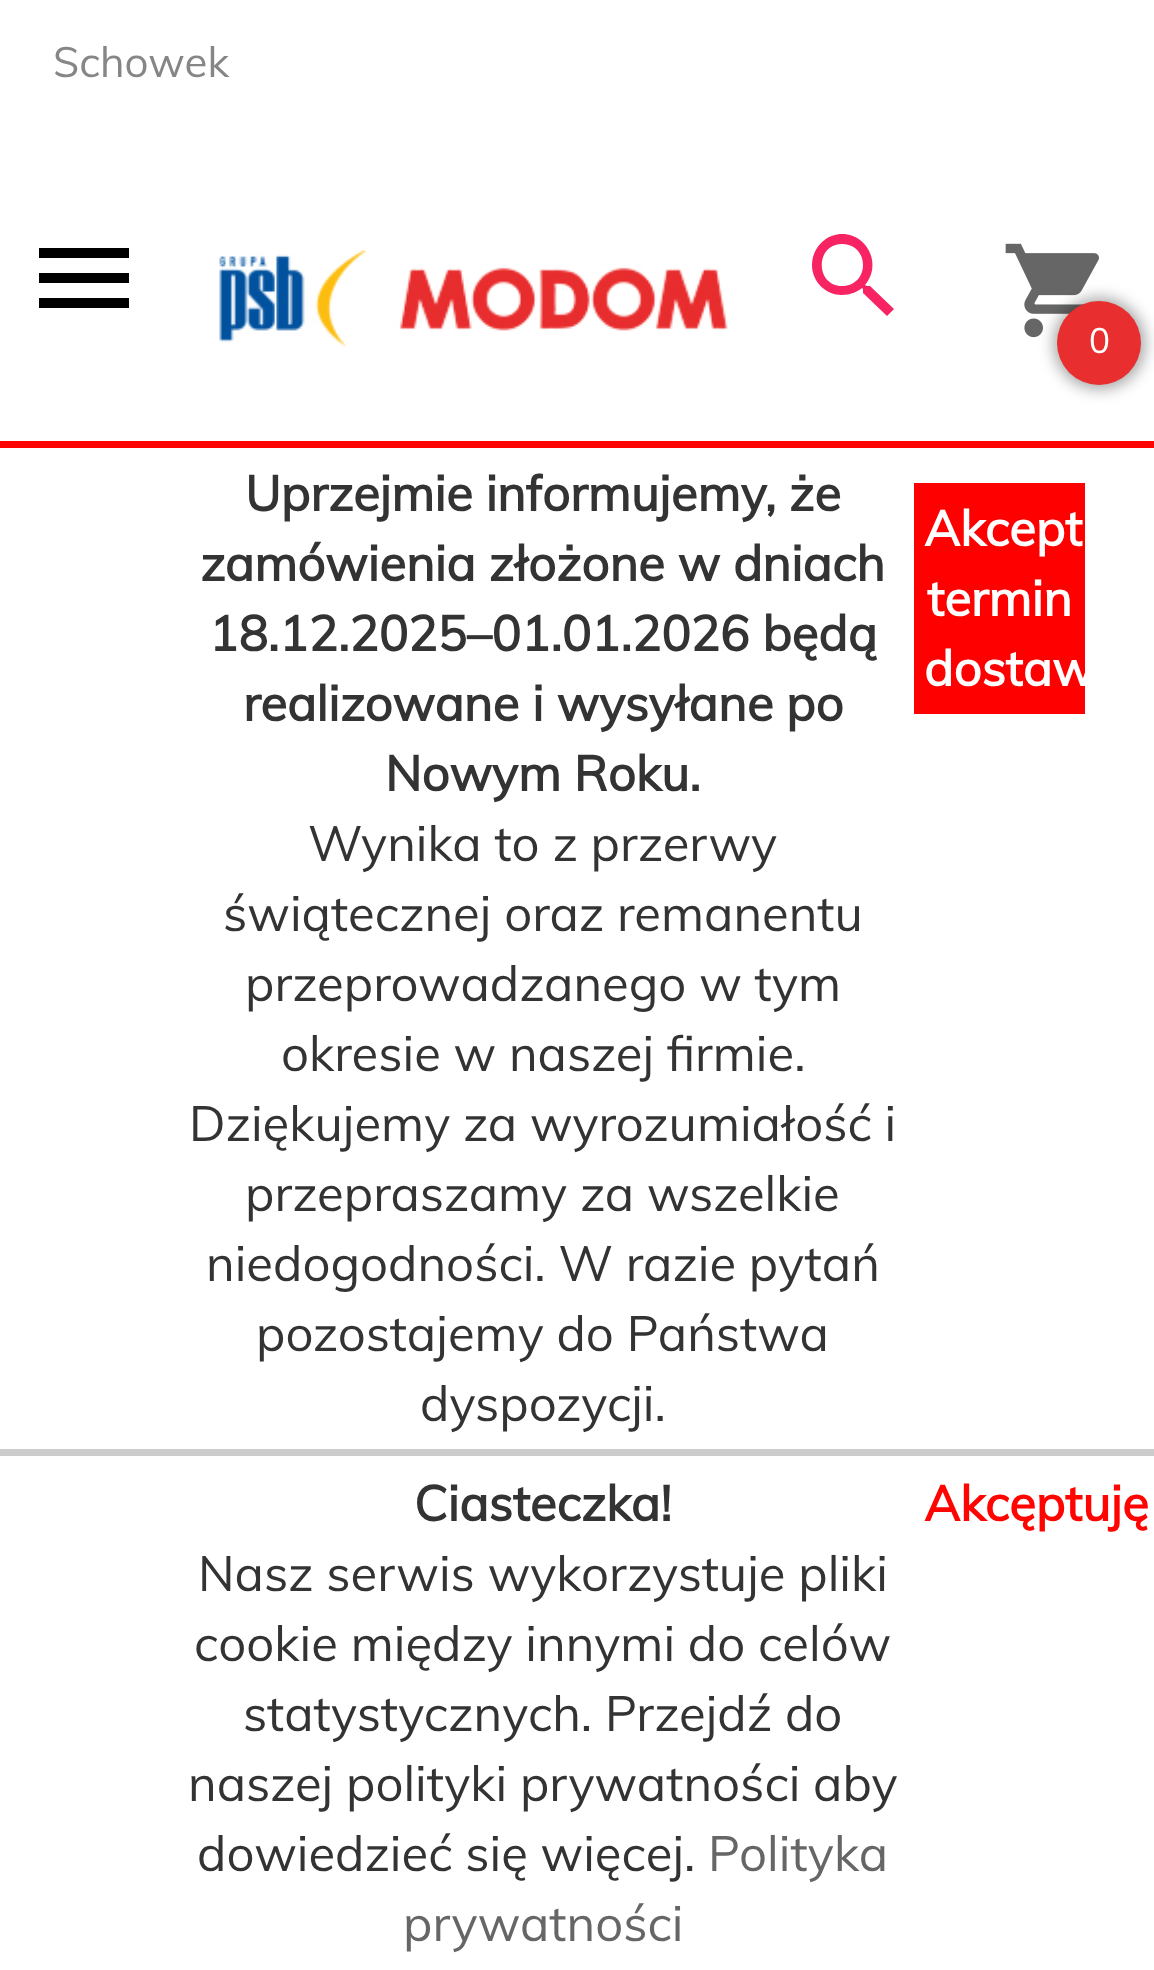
<?xml version="1.0" encoding="UTF-8"?>
<svg xmlns="http://www.w3.org/2000/svg" width="1154" height="1970">
    <defs>
        <filter id="blur1" x="-50%" y="-200%" width="200%" height="500%"><feGaussianBlur stdDeviation="7.5"/></filter>
    </defs>
    <rect width="100%" height="100%" fill="#FFFFFF"/>
    <text x="53" y="77" font-family="Muli" font-size="42" fill="#868686">Schowek</text>
    <path d="M 39 248 H 129 V 258 H 39 Z M 39 273 H 129 V 283 H 39 Z M 39 298 H 129 V 308 H 39 Z" fill="#000000"/>
    <image x="219" y="250" width="509" height="97" href="img_01.png"/>
    <path d="M 842 234 C 868 234 882 265 865 285 L 867 286 H 870 L 894 309 L 887 316 L 863 293 V 289 L 862 288 C 857 292 850 295 842 295 C 826 295 812 282 812 265 C 812 248 826 234 842 234 Z M 842 244 C 815 244 815 286 842 286 C 870 286 870 244 842 244 Z" fill="#F72363"/>
    <image x="1005" y="243" width="94" height="95" href="img_02.png"/>
    <rect x="1054" y="298" width="91" height="91" rx="45.5" fill="#000000" fill-opacity="0.36" filter="url(#blur1)"/>
    <circle cx="1099" cy="343" r="42" fill="#E92E2F"/>
    <text x="1089" y="353" font-family="Muli" font-size="35" fill="#FFFFFF">0</text>
    <rect x="0" y="441" width="1154" height="7" fill="#FF0400"/>
    <text x="245" y="511" font-family="Muli" font-size="49" font-weight="700" fill="#333333">Uprzejmie informujemy, że</text>
    <text x="200" y="581" font-family="Muli" font-size="49" font-weight="700" fill="#333333">zamówienia złożone w dniach</text>
    <text x="209" y="651" font-family="Muli" font-size="49" font-weight="700" fill="#333333">18.12.2025–01.01.2026 będą</text>
    <text x="243" y="721" font-family="Muli" font-size="49" font-weight="700" fill="#333333">realizowane i wysyłane po</text>
    <text x="385" y="791" font-family="Muli" font-size="49" font-weight="700" fill="#333333">Nowym Roku.</text>
    <text x="308" y="861" font-family="Muli" font-size="49" fill="#333333">Wynika to z przerwy</text>
    <text x="223" y="931" font-family="Muli" font-size="49" fill="#333333">świątecznej oraz remanentu</text>
    <text x="245" y="1001" font-family="Muli" font-size="49" fill="#333333">przeprowadzanego w tym</text>
    <text x="281" y="1071" font-family="Muli" font-size="49" fill="#333333">okresie w naszej firmie.</text>
    <text x="189" y="1141" font-family="Muli" font-size="49" fill="#333333">Dziękujemy za wyrozumiałość i</text>
    <text x="245" y="1211" font-family="Muli" font-size="49" fill="#333333">przepraszamy za wszelkie</text>
    <text x="206" y="1281" font-family="Muli" font-size="49" fill="#333333">niedogodności. W razie pytań</text>
    <text x="256" y="1351" font-family="Muli" font-size="49" fill="#333333">pozostajemy do Państwa</text>
    <text x="420" y="1421" font-family="Muli" font-size="49" fill="#333333">dyspozycji.</text>
    <rect x="914" y="483" width="171" height="231" fill="#FF0000"/>
    <text x="924" y="546" font-family="Muli" font-size="49" font-weight="700" fill="#FFFFFF">Akcept</text>
    <text x="927" y="616" font-family="Muli" font-size="49" font-weight="700" fill="#FFFFFF">termin</text>
    <text x="924" y="686" font-family="Muli" font-size="49" font-weight="700" fill="#FFFFFF">dostaw</text>
    <rect x="0" y="1449" width="1154" height="7" fill="#CCCCCC"/>
    <text x="414" y="1521" font-family="Muli" font-size="49" font-weight="700" fill="#333333">Ciasteczka!</text>
    <text x="198" y="1591" font-family="Muli" font-size="49" fill="#333333">Nasz serwis wykorzystuje pliki</text>
    <text x="194" y="1661" font-family="Muli" font-size="49" fill="#333333">cookie między innymi do celów</text>
    <text x="243" y="1731" font-family="Muli" font-size="49" fill="#333333">statystycznych. Przejdź do</text>
    <text x="188" y="1801" font-family="Muli" font-size="49" fill="#333333">naszej polityki prywatności aby</text>
    <text x="197" y="1871" font-family="Muli" font-size="49" fill="#333333">dowiedzieć się więcej.</text>
    <text x="708" y="1871" font-family="Muli" font-size="49" fill="#666666">Polityka</text>
    <text x="403" y="1941" font-family="Muli" font-size="49" fill="#666666">prywatności</text>
    <text x="924" y="1521" font-family="Muli" font-size="49" font-weight="700" fill="#FF0400">Akcęptuję</text>
</svg>
